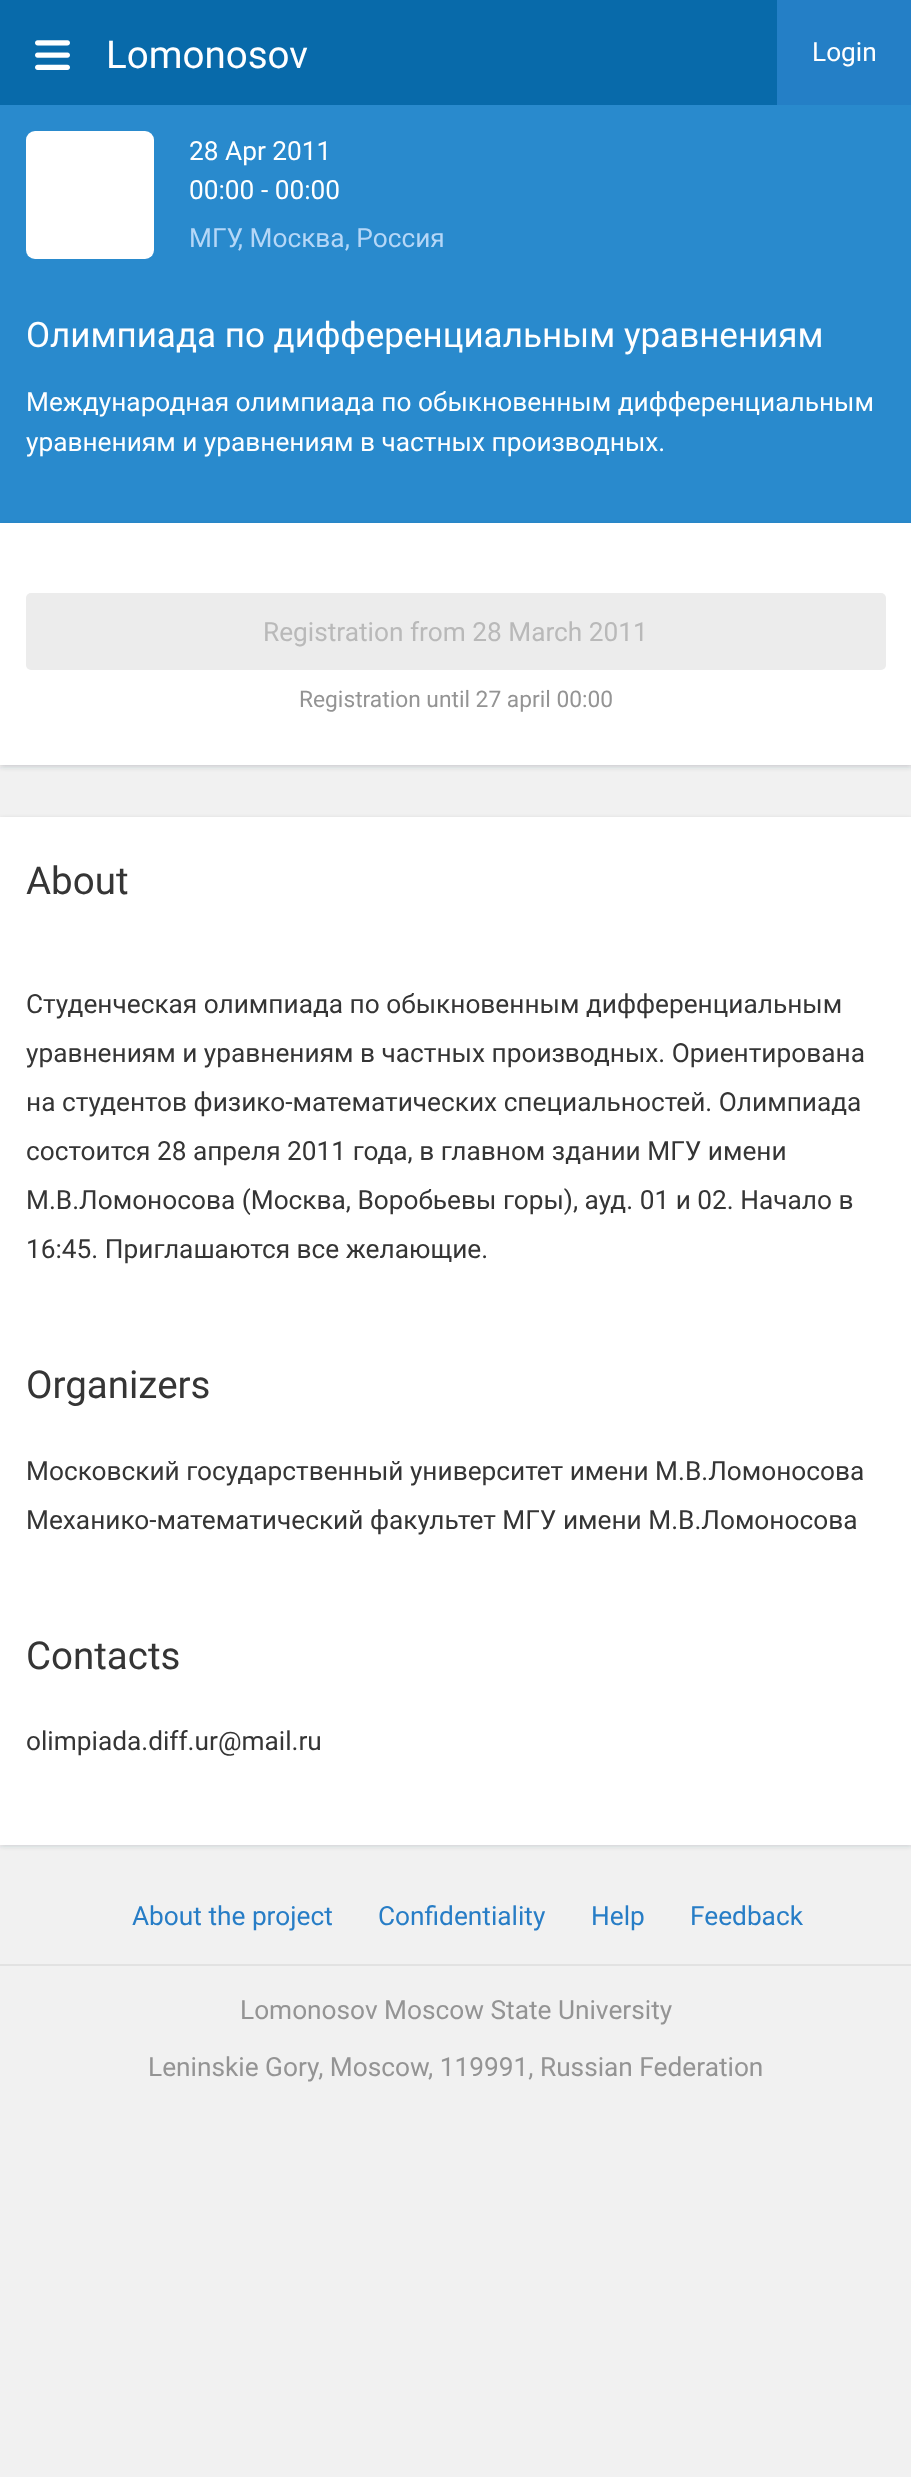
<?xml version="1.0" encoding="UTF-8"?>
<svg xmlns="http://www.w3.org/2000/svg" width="911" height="2477">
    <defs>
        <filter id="blur1" x="-50%" y="-200%" width="200%" height="500%"><feGaussianBlur stdDeviation="2.5"/></filter>
    </defs>
    <rect width="100%" height="100%" fill="#F1F1F1"/>
    <rect x="0" y="0" width="777" height="105" fill="#086AAA"/>
    <image x="35" y="40" width="35" height="30" href="img_01.png"/>
    <text x="106" y="68" font-family="Roboto" font-size="38.5" fill="#FFFFFF">Lomonosov</text>
    <rect x="777" y="0" width="134" height="105" fill="#247FC6"/>
    <text x="812" y="61" font-family="Roboto" font-size="26.25" fill="#FFFFFF">Login</text>
    <rect x="0" y="105" width="911" height="418" fill="#298ACD"/>
    <rect x="26" y="131" width="128" height="128" rx="9" fill="#FFFFFF"/>
    <text font-family="Roboto" font-size="26.25" fill="#FFFFFF">
        <tspan x="189" y="160">28 Apr 2011</tspan>
        <tspan x="189" y="199">00:00 - 00:00</tspan>
    </text>
    <text x="189" y="247" font-family="Roboto" font-size="26.25" fill="#B5D7F7">МГУ, Москва, Россия</text>
    <text x="26" y="347" font-family="Roboto" font-size="35" fill="#FFFFFF">Олимпиада по дифференциальным уравнениям</text>
    <text font-family="Roboto" font-size="26.25" fill="#FFFFFF">
        <tspan x="26" y="411">Международная олимпиада по обыкновенным дифференциальным</tspan>
        <tspan x="26" y="451">уравнениям и уравнениям в частных производных.</tspan>
    </text>
    <rect x="0" y="525" width="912" height="242" fill="#323C49" fill-opacity="0.19" filter="url(#blur1)"/>
    <rect x="0" y="523" width="911" height="242" fill="#FFFFFF"/>
    <rect x="26" y="593" width="860" height="77" rx="5" fill="#ECECEC"/>
    <text x="263" y="641" font-family="Roboto" font-size="26.25" fill="#B9B9B9">Registration from 28 March 2011</text>
    <text x="299" y="707" font-family="Roboto" font-size="22.75" fill="#949494">Registration until 27 april 00:00</text>
    <rect x="0" y="819" width="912" height="1027" fill="#323C49" fill-opacity="0.19" filter="url(#blur1)"/>
    <rect x="0" y="817" width="911" height="1028" fill="#FFFFFF"/>
    <text x="26" y="894" font-family="Roboto" font-size="38.5" fill="#353535">About</text>
    <text font-family="Roboto" font-size="26.25" fill="#353535">
        <tspan x="26" y="1013">Студенческая олимпиада по обыкновенным дифференциальным</tspan>
        <tspan x="26" y="1062">уравнениям и уравнениям в частных производных. Ориентирована</tspan>
        <tspan x="26" y="1111">на студентов физико-математических специальностей. Олимпиада</tspan>
        <tspan x="26" y="1160">состоится 28 апреля 2011 года, в главном здании МГУ имени</tspan>
        <tspan x="26" y="1209">М.В.Ломоносова (Москва, Воробьевы горы), ауд. 01 и 02. Начало в</tspan>
        <tspan x="26" y="1258">16:45. Приглашаются все желающие.</tspan>
    </text>
    <text x="26" y="1398" font-family="Roboto" font-size="38.5" fill="#353535">Organizers</text>
    <text font-family="Roboto" font-size="26.25" fill="#353535">
        <tspan x="26" y="1480">Московский государственный университет имени М.В.Ломоносова</tspan>
        <tspan x="26" y="1529">Механико-математический факультет МГУ имени М.В.Ломоносова</tspan>
    </text>
    <text x="26" y="1669" font-family="Roboto" font-size="38.5" fill="#353535">Contacts</text>
    <text x="26" y="1750" font-family="Roboto" font-size="26.25" fill="#353535">olimpiada.diff.ur@mail.ru</text>
    <rect x="0" y="1964" width="911" height="2" fill="#E2E2E2"/>
    <text x="132" y="1925" font-family="Roboto" font-size="26.25" fill="#277DC6">About the project</text>
    <text x="378" y="1925" font-family="Roboto" font-size="26.25" fill="#277DC6">Confidentiality</text>
    <text x="591" y="1925" font-family="Roboto" font-size="26.25" fill="#277DC6">Help</text>
    <text x="690" y="1925" font-family="Roboto" font-size="26.25" fill="#277DC6">Feedback</text>
    <text x="240" y="2019" font-family="Roboto" font-size="26.25" fill="#949494">Lomonosov Moscow State University</text>
    <text x="148" y="2076" font-family="Roboto" font-size="26.25" fill="#949494">Leninskie Gory, Moscow, 119991, Russian Federation</text>
</svg>
